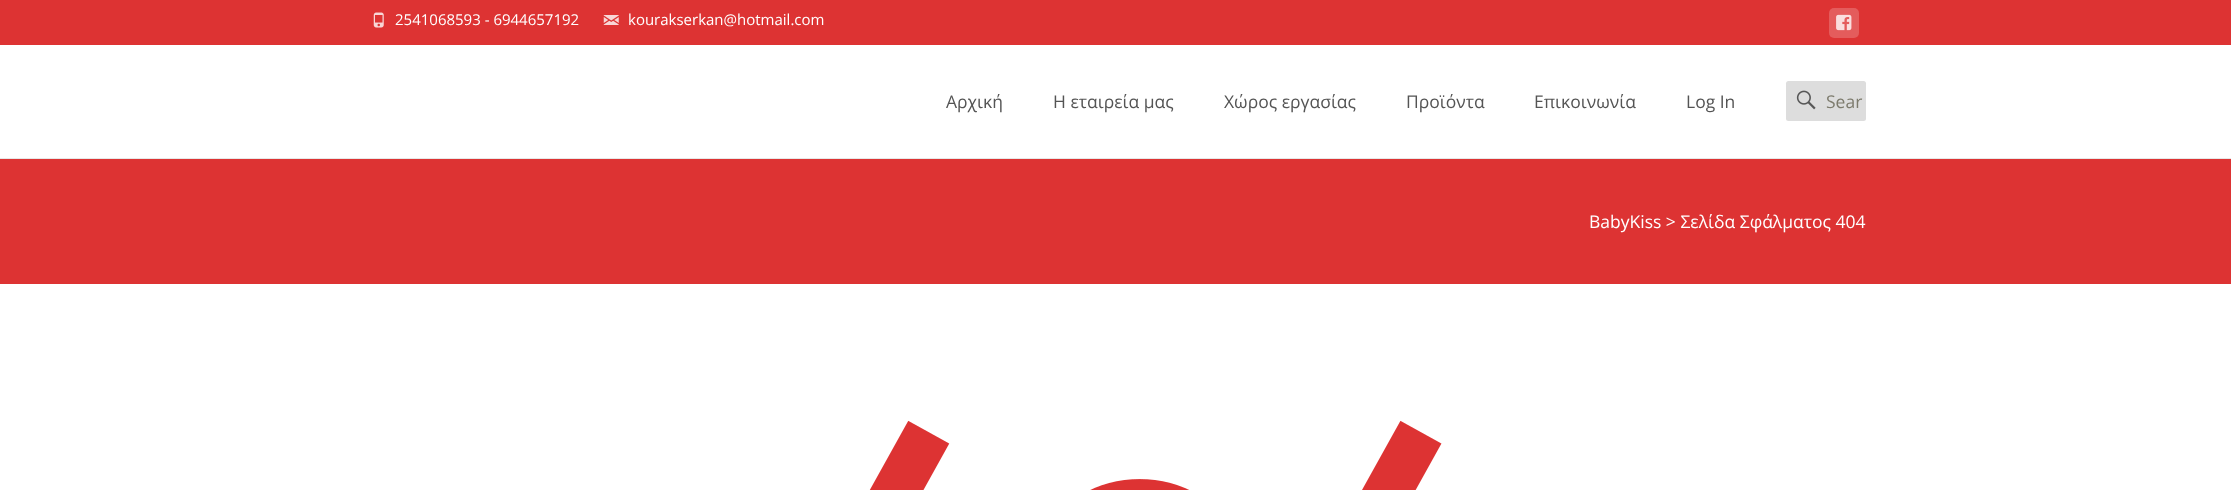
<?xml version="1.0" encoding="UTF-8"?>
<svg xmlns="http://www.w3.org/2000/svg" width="2231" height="490">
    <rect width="100%" height="100%" fill="#FFFFFF"/>
    <rect x="0" y="0" width="2231" height="45" fill="#DD3333"/>
    <image x="373" y="12" width="11" height="16" href="img_01.png"/>
    <text x="395" y="25" font-family="Open Sans" font-size="15" fill="#FFFFFF">2541068593 - 6944657192</text>
    <image x="603" y="15" width="16" height="10" href="img_02.png"/>
    <text x="628" y="25" font-family="Open Sans" font-size="15" fill="#FFFFFF">kourakserkan@hotmail.com</text>
    <rect x="1829" y="8" width="30" height="30" rx="5" fill="#E45C5C"/>
    <image x="1836" y="14" width="16" height="17" href="img_03.png"/>
    <rect x="0" y="158" width="2231" height="1" fill="#E7E7E7"/>
    <text x="946" y="108" font-family="Open Sans" font-size="17.5" fill="#545454">Αρχική</text>
    <text x="1053" y="108" font-family="Open Sans" font-size="17.5" fill="#545454">Η εταιρεία μας</text>
    <text x="1224" y="108" font-family="Open Sans" font-size="17.5" fill="#545454">Χώρος εργασίας</text>
    <text x="1406" y="108" font-family="Open Sans" font-size="17.5" fill="#545454">Προϊόντα</text>
    <text x="1534" y="108" font-family="Open Sans" font-size="17.5" fill="#545454">Επικοινωνία</text>
    <text x="1686" y="108" font-family="Open Sans" font-size="17.5" fill="#545454">Log In</text>
    <rect x="1786" y="81" width="80" height="40" rx="2.5" fill="#DDDDDD"/>
    <image x="1796" y="90" width="20" height="20" href="img_04.png"/>
    <text x="1826" y="108" font-family="Open Sans" font-size="17.5" fill="#7D7B6D">Sear</text>
    <rect x="0" y="159" width="2231" height="125" fill="#DD3333"/>
    <text x="1589" y="228" font-family="Open Sans" font-size="17.5" fill="#FFFFFF">BabyKiss &gt; Σελίδα Σφάλματος 404</text>
    <image x="869" y="420" width="573" height="70" href="img_05.png"/>
</svg>
